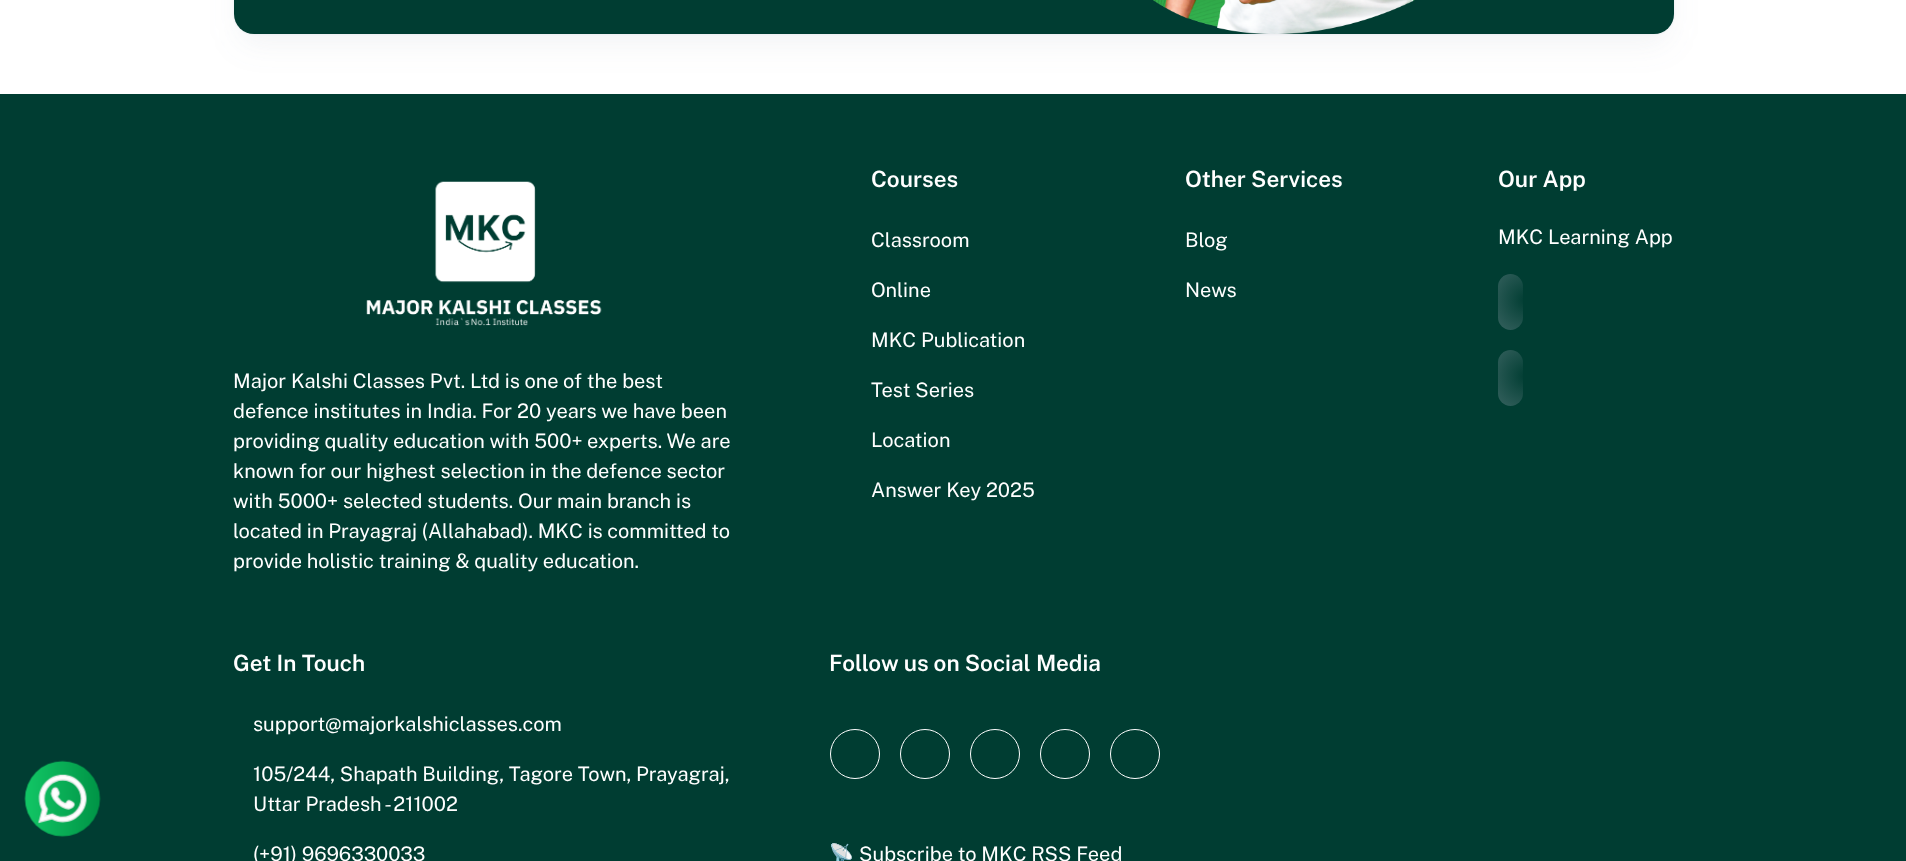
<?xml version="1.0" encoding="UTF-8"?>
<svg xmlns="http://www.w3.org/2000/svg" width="1906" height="861">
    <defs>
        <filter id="blur1" x="-50%" y="-200%" width="200%" height="500%"><feGaussianBlur stdDeviation="15"/></filter>
        <filter id="blur2" x="-50%" y="-200%" width="200%" height="500%"><feGaussianBlur stdDeviation="1"/></filter>
        <radialGradient id="g1" gradientUnits="userSpaceOnUse" cx="1526" cy="300" r="54"><stop offset="0" stop-color="#003D32"/><stop offset="1" stop-color="#466C6C"/></radialGradient>
        <radialGradient id="g2" gradientUnits="userSpaceOnUse" cx="1526" cy="376" r="54"><stop offset="0" stop-color="#003D32"/><stop offset="1" stop-color="#466C6C"/></radialGradient>
    </defs>
    <rect width="100%" height="100%" fill="#FFFFFF"/>
    <rect x="0" y="94" width="1906" height="767" fill="#003D32"/>
    <image x="24" y="760" width="77" height="77" href="img_01.png"/>
    <rect x="239" y="-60" width="1430" height="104" rx="15" fill="#919EAB" fill-opacity="0.12" filter="url(#blur1)"/>
    <rect x="234" y="-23" width="1440" height="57" rx="20" fill="#919EAB" fill-opacity="0.2" filter="url(#blur2)"/>
    <rect x="234" y="-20" width="1440" height="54" rx="20" fill="#003D32"/>
    <image x="1153" y="0" width="262" height="34" href="img_02.png"/>
    <text x="871" y="187" font-family="Public Sans" font-size="22.5" font-weight="600" fill="#FFFFFF">Courses</text>
    <text x="871" y="247" font-family="Public Sans" font-size="20" fill="#FFFFFF">Classroom</text>
    <text x="871" y="297" font-family="Public Sans" font-size="20" fill="#FFFFFF">Online</text>
    <text x="871" y="347" font-family="Public Sans" font-size="20" fill="#FFFFFF">MKC Publication</text>
    <text x="871" y="397" font-family="Public Sans" font-size="20" fill="#FFFFFF">Test Series</text>
    <text x="871" y="447" font-family="Public Sans" font-size="20" fill="#FFFFFF">Location</text>
    <text x="871" y="497" font-family="Public Sans" font-size="20" fill="#FFFFFF">Answer Key 2025</text>
    <text x="1185" y="187" font-family="Public Sans" font-size="22.5" font-weight="600" fill="#FFFFFF">Other Services</text>
    <text x="1185" y="247" font-family="Public Sans" font-size="20" fill="#FFFFFF">Blog</text>
    <text x="1185" y="297" font-family="Public Sans" font-size="20" fill="#FFFFFF">News</text>
    <text x="1498" y="187" font-family="Public Sans" font-size="22.5" font-weight="600" fill="#FFFFFF">Our App</text>
    <text x="1498" y="244" font-family="Public Sans" font-size="20" fill="#FFFFFF">MKC Learning App</text>
    <rect x="1498" y="274" width="25" height="56" rx="12.5" fill="url(#g1)"/>
    <rect x="1498" y="350" width="25" height="56" rx="12.5" fill="url(#g2)"/>
    <image x="366" y="181" width="236" height="145" href="img_03.png"/>
    <text font-family="Public Sans" font-size="20" fill="#FFFFFF">
        <tspan x="233" y="388">Major Kalshi Classes Pvt. Ltd is one of the best</tspan>
        <tspan x="233" y="418">defence institutes in India. For 20 years we have been</tspan>
        <tspan x="233" y="448">providing quality education with 500+ experts. We are</tspan>
        <tspan x="233" y="478">known for our highest selection in the defence sector</tspan>
        <tspan x="233" y="508">with 5000+ selected students. Our main branch is</tspan>
        <tspan x="233" y="538">located in Prayagraj (Allahabad). MKC is committed to</tspan>
        <tspan x="233" y="568">provide holistic training &amp; quality education.</tspan>
    </text>
    <text x="233" y="671" font-family="Public Sans" font-size="22.5" font-weight="600" fill="#FFFFFF">Get In Touch</text>
    <text x="253" y="731" font-family="Public Sans" font-size="20" fill="#FFFFFF">support@majorkalshiclasses.com</text>
    <text font-family="Public Sans" font-size="20" fill="#FFFFFF">
        <tspan x="253" y="781">105/244, Shapath Building, Tagore Town, Prayagraj,</tspan>
        <tspan x="253" y="811">Uttar Pradesh - 211002</tspan>
    </text>
    <text x="253" y="861" font-family="Public Sans" font-size="20" fill="#FFFFFF">(+91) 9696330033</text>
    <text x="829" y="671" font-family="Public Sans" font-size="22.5" font-weight="600" fill="#FFFFFF">Follow us on Social Media</text>
    <circle cx="855" cy="754" r="24.5" fill="none" stroke="#FFFFFF"/>
    <circle cx="925" cy="754" r="24.5" fill="none" stroke="#FFFFFF"/>
    <circle cx="995" cy="754" r="24.5" fill="none" stroke="#FFFFFF"/>
    <circle cx="1065" cy="754" r="24.5" fill="none" stroke="#FFFFFF"/>
    <circle cx="1135" cy="754" r="24.5" fill="none" stroke="#FFFFFF"/>
    <text x="829" y="861" font-family="Noto Color Emoji" font-size="20" fill="#FFFFFF">📡</text>
    <text x="859" y="861" font-family="Public Sans" font-size="20" fill="#FFFFFF">Subscribe to MKC RSS Feed</text>
</svg>
